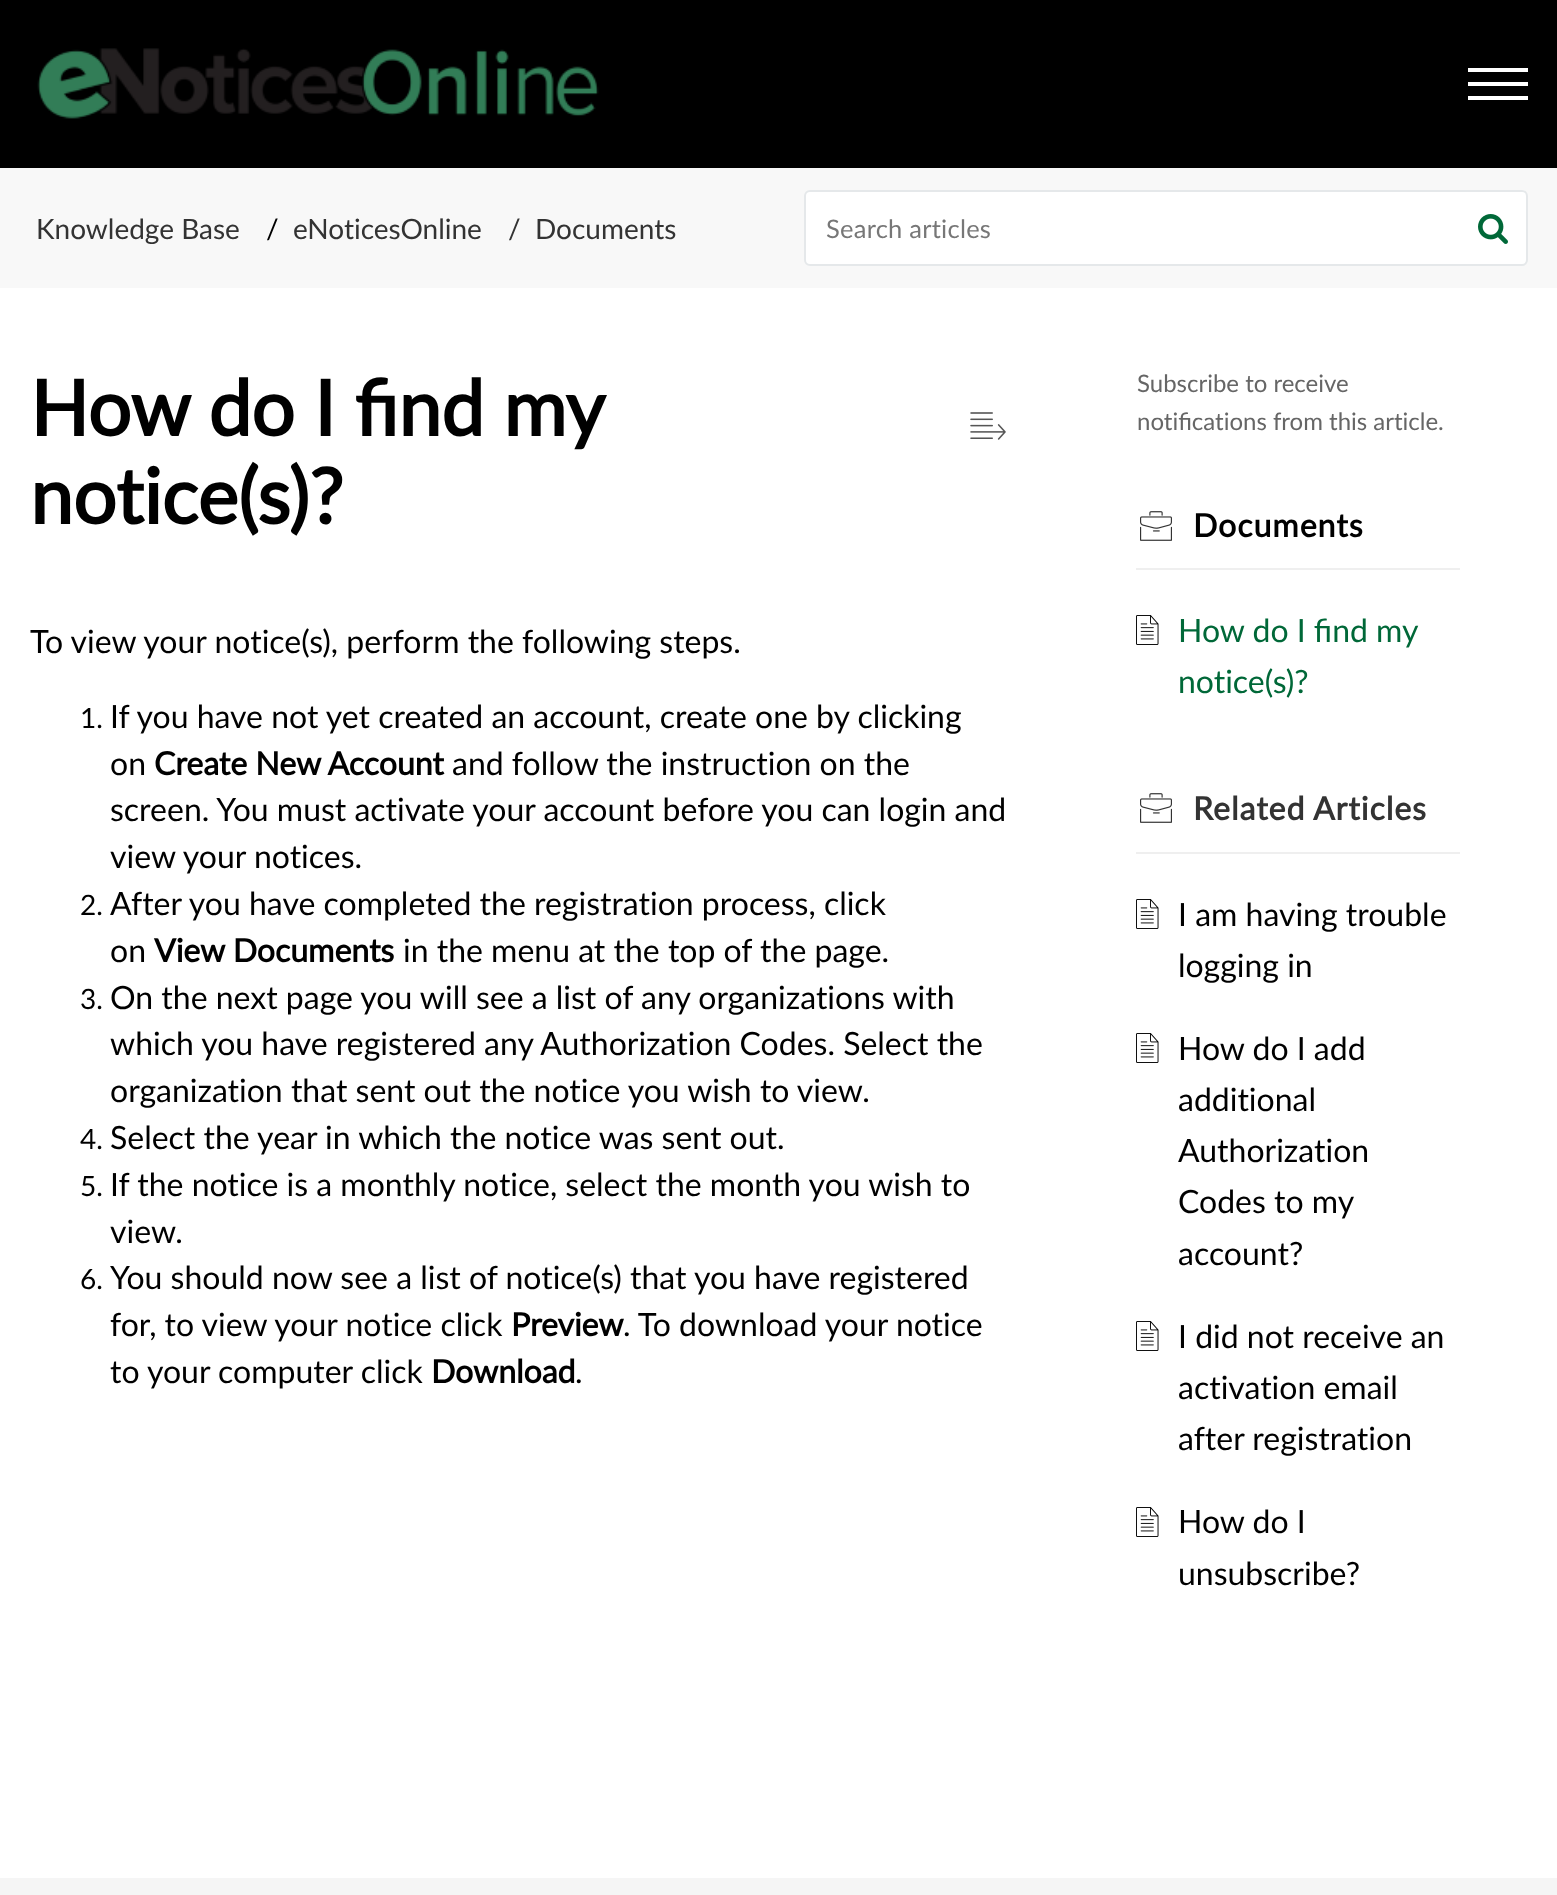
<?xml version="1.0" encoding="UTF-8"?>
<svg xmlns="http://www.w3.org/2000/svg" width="1557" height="1895">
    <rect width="100%" height="100%" fill="#FFFFFF"/>
    <rect x="0" y="0" width="1557" height="168" fill="#000000"/>
    <image x="37" y="48" width="562" height="71" href="img_01.png"/>
    <rect x="1468" y="82" width="60" height="4" fill="#FFFFFF"/>
    <rect x="1468" y="68" width="60" height="4" fill="#FFFFFF"/>
    <rect x="1468" y="96" width="60" height="4" fill="#FFFFFF"/>
    <rect x="0" y="168" width="1557" height="120" fill="#F8F8F8"/>
    <text x="36" y="239" font-family="Lato" font-size="28" fill="#333333">Knowledge Base</text>
    <text x="266" y="239" font-family="Lato" font-size="28" fill="#000000">/</text>
    <text x="293" y="239" font-family="Lato" font-size="28" fill="#333333">eNoticesOnline</text>
    <text x="508" y="239" font-family="Lato" font-size="28" fill="#333333">/</text>
    <text x="535" y="239" font-family="Lato" font-size="28" fill="#333333">Documents</text>
    <rect x="805" y="191" width="722" height="74" rx="5" fill="#FFFFFF" stroke="#E5E8EA" stroke-width="2"/>
    <text x="826" y="238" font-family="Lato" font-size="25.5" letter-spacing="0.25" fill="#777777">Search articles</text>
    <image x="1478" y="214" width="30" height="30" href="img_02.png"/>
    <text font-family="Lato" font-size="76.75" font-weight="700" fill="#000000">
        <tspan x="30" y="436" word-spacing="-0.5">How do I find my</tspan>
        <tspan x="30" y="524">notice(s)?</tspan>
    </text>
    <image x="970" y="412" width="36" height="28" href="img_03.png"/>
    <text x="30" y="653" font-family="Lato" font-size="32" fill="#000000">To view your notice(s), perform the following steps.</text>
    <text x="80" y="728" font-family="Lato" font-size="28" fill="#000000">1.</text>
    <text font-family="Lato" font-size="32" fill="#000000">
        <tspan x="110" y="728">If you have not yet created an account, create one by clicking</tspan>
        <tspan x="110" y="775">on</tspan>
    </text>
    <text x="154" y="775" font-family="Lato" font-size="32" font-weight="700" fill="#000000">Create New Account</text>
    <text x="452" y="775" font-family="Lato" font-size="32" fill="#000000">and follow the instruction on the</text>
    <text font-family="Lato" font-size="32" fill="#000000">
        <tspan x="110" y="821">screen. You must activate your account before you can login and</tspan>
        <tspan x="110" y="868">view your notices.</tspan>
    </text>
    <text x="80" y="915" font-family="Lato" font-size="28" fill="#000000">2.</text>
    <text font-family="Lato" font-size="32" fill="#000000">
        <tspan x="110" y="915">After you have completed the registration process, click</tspan>
        <tspan x="110" y="962">on</tspan>
    </text>
    <text x="154" y="962" font-family="Lato" font-size="32" font-weight="700" fill="#000000">View Documents</text>
    <text x="403" y="962" font-family="Lato" font-size="32" fill="#000000">in the menu at the top of the page.</text>
    <text x="80" y="1009" font-family="Lato" font-size="28" fill="#000000">3.</text>
    <text font-family="Lato" font-size="32" fill="#000000">
        <tspan x="110" y="1009">On the next page you will see a list of any organizations with</tspan>
        <tspan x="110" y="1055">which you have registered any Authorization Codes. Select the</tspan>
        <tspan x="110" y="1102">organization that sent out the notice you wish to view.</tspan>
    </text>
    <text x="80" y="1149" font-family="Lato" font-size="28" fill="#000000">4.</text>
    <text x="110" y="1149" font-family="Lato" font-size="32" fill="#000000">Select the year in which the notice was sent out.</text>
    <text x="80" y="1196" font-family="Lato" font-size="28" fill="#000000">5.</text>
    <text font-family="Lato" font-size="32" fill="#000000">
        <tspan x="110" y="1196">If the notice is a monthly notice, select the month you wish to</tspan>
        <tspan x="110" y="1243">view.</tspan>
    </text>
    <text x="80" y="1289" font-family="Lato" font-size="28" fill="#000000">6.</text>
    <text font-family="Lato" font-size="32" fill="#000000">
        <tspan x="110" y="1289">You should now see a list of notice(s) that you have registered</tspan>
        <tspan x="110" y="1336">for, to view your notice click</tspan>
    </text>
    <text x="511" y="1336" font-family="Lato" font-size="32" font-weight="700" fill="#000000">Preview</text>
    <text x="623" y="1336" font-family="Lato" font-size="32" fill="#000000">. To download your notice</text>
    <text x="110" y="1383" font-family="Lato" font-size="32" fill="#000000">to your computer click</text>
    <text x="431" y="1383" font-family="Lato" font-size="32" font-weight="700" fill="#000000">Download</text>
    <text x="575" y="1383" font-family="Lato" font-size="32" fill="#000000">.</text>
    <text font-family="Lato" font-size="24" fill="#666666">
        <tspan x="1137" y="392">Subscribe to receive</tspan>
        <tspan x="1137" y="430">notifications from this article.</tspan>
    </text>
    <rect x="1136" y="568" width="324" height="2" fill="#EFEFEF"/>
    <image x="1140" y="511" width="32" height="30" href="img_04.png"/>
    <text x="1193" y="537" font-family="Lato" font-size="32" font-weight="700" letter-spacing="1" fill="#000000">Documents</text>
    <image x="1136" y="615" width="23" height="30" href="img_05.png"/>
    <text font-family="Lato" font-size="32" fill="#006838">
        <tspan x="1178" y="642">How do I find my</tspan>
        <tspan x="1178" y="693">notice(s)?</tspan>
    </text>
    <rect x="1136" y="852" width="324" height="2" fill="#EFEFEF"/>
    <image x="1140" y="793" width="32" height="30" href="img_04.png"/>
    <text x="1193" y="820" font-family="Lato" font-size="32" font-weight="700" letter-spacing="1" fill="#333333">Related</text>
    <text x="1313" y="820" font-family="Lato" font-size="32" font-weight="700" letter-spacing="1" fill="#333333">Articles</text>
    <image x="1136" y="899" width="23" height="30" href="img_05.png"/>
    <text font-family="Lato" font-size="32" fill="#000000">
        <tspan x="1178" y="926">I am having trouble</tspan>
        <tspan x="1178" y="977">logging in</tspan>
    </text>
    <image x="1136" y="1033" width="23" height="30" href="img_05.png"/>
    <text font-family="Lato" font-size="32" fill="#000000">
        <tspan x="1178" y="1060">How do I add</tspan>
        <tspan x="1178" y="1111">additional</tspan>
        <tspan x="1178" y="1162">Authorization</tspan>
        <tspan x="1178" y="1213">Codes to my</tspan>
        <tspan x="1178" y="1265">account?</tspan>
    </text>
    <image x="1136" y="1321" width="23" height="30" href="img_05.png"/>
    <text font-family="Lato" font-size="32" fill="#000000">
        <tspan x="1178" y="1348">I did not receive an</tspan>
        <tspan x="1178" y="1399">activation email</tspan>
        <tspan x="1178" y="1450">after registration</tspan>
    </text>
    <image x="1136" y="1507" width="23" height="30" href="img_05.png"/>
    <text font-family="Lato" font-size="32" fill="#000000">
        <tspan x="1178" y="1533">How do I</tspan>
        <tspan x="1178" y="1585">unsubscribe?</tspan>
    </text>
    <rect x="0" y="1878" width="1557" height="17" fill="#F5F5F5"/>
</svg>
